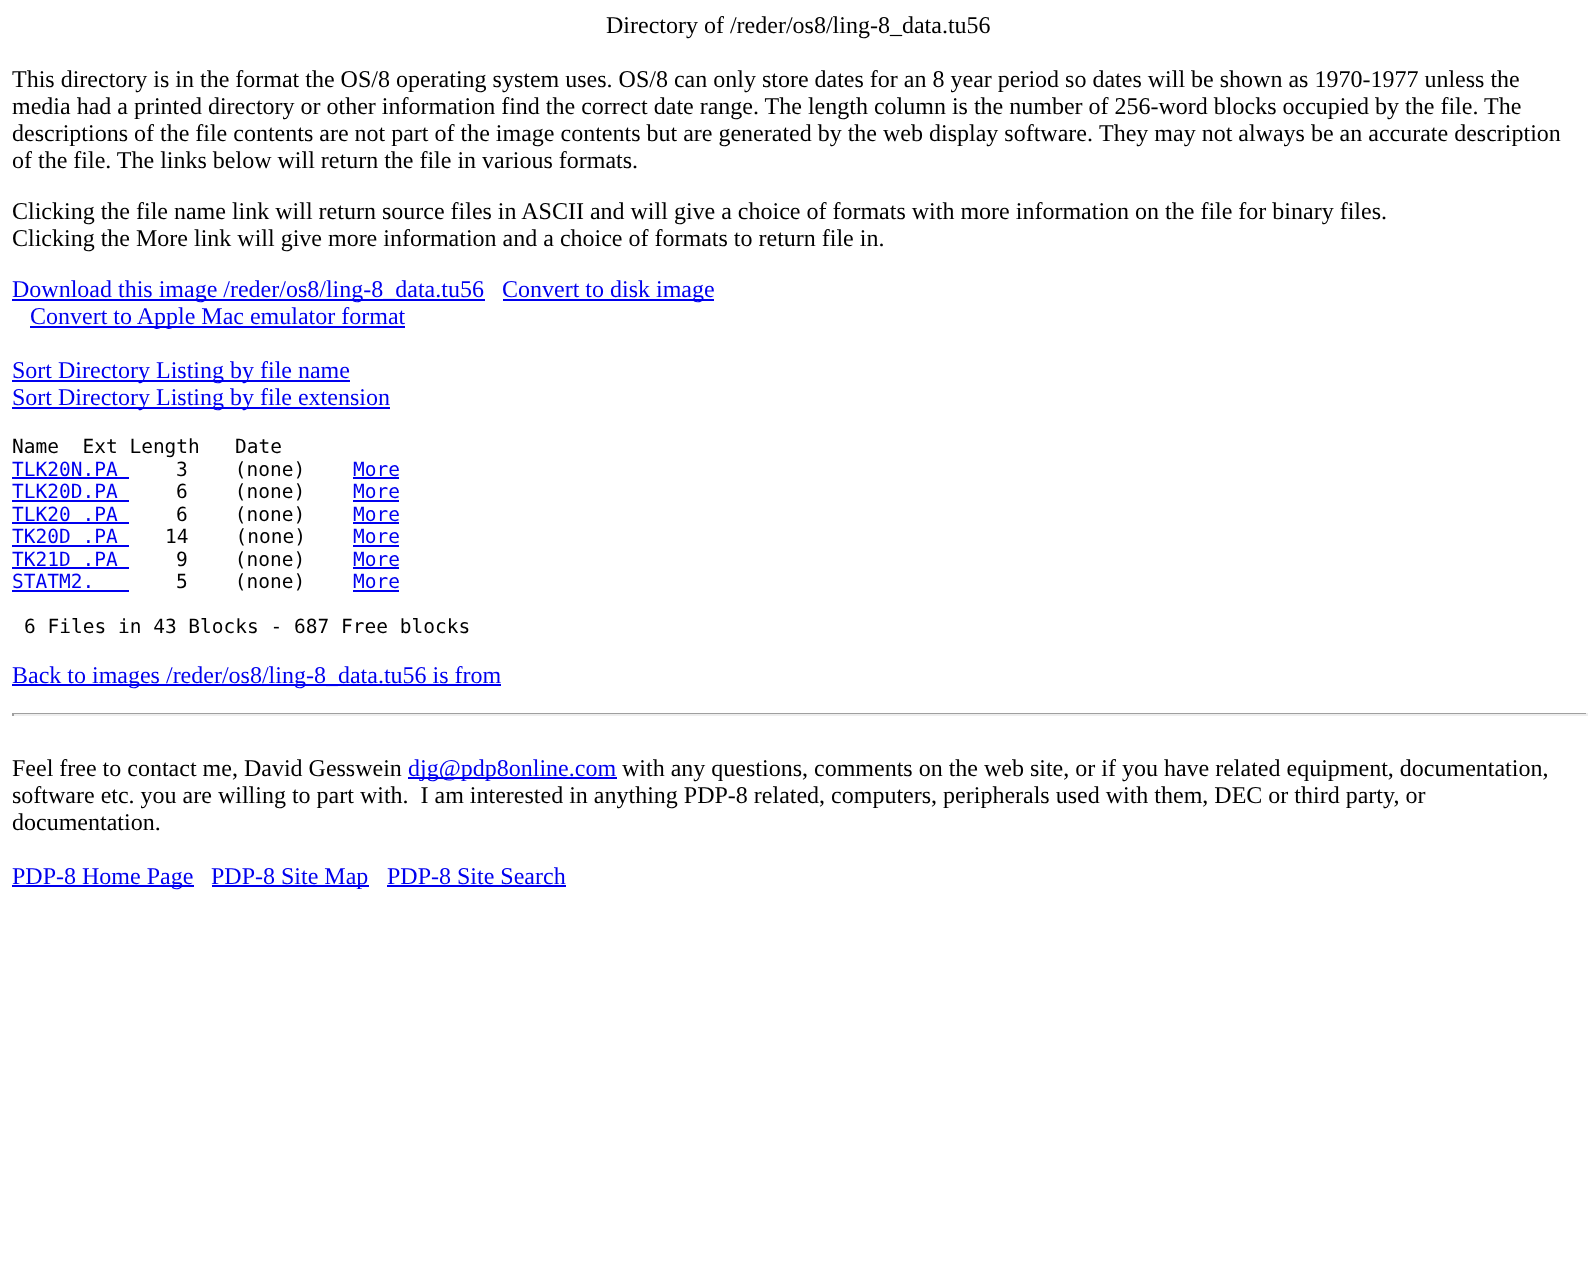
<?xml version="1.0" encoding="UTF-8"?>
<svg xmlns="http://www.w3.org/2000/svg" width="1595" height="1285">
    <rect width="100%" height="100%" fill="#FFFFFF"/>
    <text x="606" y="33" font-family="Liberation Serif" font-size="24" fill="#000000">Directory of /reder/os8/ling-8_data.tu56</text>
    <text font-family="Liberation Serif" font-size="24" fill="#000000">
        <tspan x="12" y="87">This directory is in the format the OS/8 operating system uses. OS/8 can only store dates for an 8 year period so dates will be shown as 1970-1977 unless the</tspan>
        <tspan x="12" y="114">media had a printed directory or other information find the correct date range. The length column is the number of 256-word blocks occupied by the file. The</tspan>
        <tspan x="12" y="141">descriptions of the file contents are not part of the image contents but are generated by the web display software.</tspan>
    </text>
    <text x="1099" y="141" font-family="Liberation Serif" font-size="24" fill="#000000">They may not always be an accurate description</text>
    <text x="12" y="168" font-family="Liberation Serif" font-size="24" fill="#000000">of the file. The links below will return the file in various formats.</text>
    <text font-family="Liberation Serif" font-size="24" fill="#000000">
        <tspan x="12" y="219">Clicking the file name link will return source files in ASCII and will give a choice of formats with more information on the file for binary files.</tspan>
        <tspan x="12" y="246">Clicking the More link will give more information and a choice of formats to return file in.</tspan>
    </text>
    <rect x="12" y="299" width="473" height="2" fill="#0000EE"/>
    <text x="12" y="297" font-family="Liberation Serif" font-size="24" fill="#0000EE">Download this image /reder/os8/ling-8_data.tu56</text>
    <rect x="503" y="299" width="211" height="2" fill="#0000EE"/>
    <text x="502" y="297" font-family="Liberation Serif" font-size="24" fill="#0000EE">Convert to disk image</text>
    <rect x="30" y="326" width="375" height="2" fill="#0000EE"/>
    <text x="30" y="324" font-family="Liberation Serif" font-size="24" fill="#0000EE">Convert to Apple Mac emulator format</text>
    <rect x="12" y="380" width="338" height="2" fill="#0000EE"/>
    <text x="12" y="378" font-family="Liberation Serif" font-size="24" fill="#0000EE">Sort Directory Listing by file name</text>
    <rect x="12" y="407" width="378" height="2" fill="#0000EE"/>
    <text x="12" y="405" font-family="Liberation Serif" font-size="24" fill="#0000EE">Sort Directory Listing by file extension</text>
    <text x="12" y="453" font-family="DejaVu Sans Mono" font-size="19.5" fill="#000000" xml:space="preserve">Name  Ext Length   Date</text>
    <text x="12" y="476" font-family="DejaVu Sans Mono" font-size="19.5" fill="#0000EE">TLK20N.PA</text>
    <rect x="12" y="477" width="117" height="2" fill="#0000EE"/>
    <text x="176" y="476" font-family="DejaVu Sans Mono" font-size="19.5" fill="#000000" xml:space="preserve">3    (none)</text>
    <text x="353" y="476" font-family="DejaVu Sans Mono" font-size="19.5" fill="#0000EE">More</text>
    <rect x="353" y="477" width="46" height="2" fill="#0000EE"/>
    <text x="12" y="498" font-family="DejaVu Sans Mono" font-size="19.5" fill="#0000EE">TLK20D.PA</text>
    <rect x="12" y="500" width="117" height="2" fill="#0000EE"/>
    <text x="176" y="498" font-family="DejaVu Sans Mono" font-size="19.5" fill="#000000" xml:space="preserve">6    (none)</text>
    <text x="353" y="498" font-family="DejaVu Sans Mono" font-size="19.5" fill="#0000EE">More</text>
    <rect x="353" y="500" width="46" height="2" fill="#0000EE"/>
    <text x="12" y="521" font-family="DejaVu Sans Mono" font-size="19.5" fill="#0000EE">TLK20 .PA</text>
    <rect x="12" y="522" width="117" height="2" fill="#0000EE"/>
    <text x="176" y="521" font-family="DejaVu Sans Mono" font-size="19.5" fill="#000000" xml:space="preserve">6    (none)</text>
    <text x="353" y="521" font-family="DejaVu Sans Mono" font-size="19.5" fill="#0000EE">More</text>
    <rect x="353" y="522" width="46" height="2" fill="#0000EE"/>
    <text x="12" y="543" font-family="DejaVu Sans Mono" font-size="19.5" fill="#0000EE">TK20D .PA</text>
    <rect x="12" y="545" width="117" height="2" fill="#0000EE"/>
    <text x="165" y="543" font-family="DejaVu Sans Mono" font-size="19.5" fill="#000000" xml:space="preserve">14    (none)</text>
    <text x="353" y="543" font-family="DejaVu Sans Mono" font-size="19.5" fill="#0000EE">More</text>
    <rect x="353" y="545" width="46" height="2" fill="#0000EE"/>
    <text x="12" y="566" font-family="DejaVu Sans Mono" font-size="19.5" fill="#0000EE">TK21D .PA</text>
    <rect x="12" y="567" width="117" height="2" fill="#0000EE"/>
    <text x="176" y="566" font-family="DejaVu Sans Mono" font-size="19.5" fill="#000000" xml:space="preserve">9    (none)</text>
    <text x="353" y="566" font-family="DejaVu Sans Mono" font-size="19.5" fill="#0000EE">More</text>
    <rect x="353" y="567" width="46" height="2" fill="#0000EE"/>
    <text x="12" y="588" font-family="DejaVu Sans Mono" font-size="19.5" fill="#0000EE">STATM2.</text>
    <rect x="12" y="590" width="117" height="2" fill="#0000EE"/>
    <text x="176" y="588" font-family="DejaVu Sans Mono" font-size="19.5" fill="#000000" xml:space="preserve">5    (none)</text>
    <text x="353" y="588" font-family="DejaVu Sans Mono" font-size="19.5" fill="#0000EE">More</text>
    <rect x="353" y="590" width="46" height="2" fill="#0000EE"/>
    <text x="24" y="633" font-family="DejaVu Sans Mono" font-size="19.5" fill="#000000">6 Files in 43 Blocks - 687 Free blocks</text>
    <rect x="12" y="684" width="489" height="2" fill="#0000EE"/>
    <text x="12" y="683" font-family="Liberation Serif" font-size="24" fill="#0000EE">Back to images /reder/os8/ling-8_data.tu56 is from</text>
    <rect x="12" y="713" width="1575" height="1" fill="#9F9F9F"/>
    <rect x="1586" y="713" width="2" height="3" fill="#EEEEEE"/>
    <rect x="12" y="714" width="1575" height="2" fill="#EEEEEE"/>
    <rect x="12" y="713" width="2" height="3" fill="#9F9F9F"/>
    <text x="12" y="776" font-family="Liberation Serif" font-size="24" fill="#000000">Feel free to contact me, David Gesswein</text>
    <rect x="408" y="777" width="209" height="2" fill="#0000EE"/>
    <text x="408" y="776" font-family="Liberation Serif" font-size="24" fill="#0000EE">djg@pdp8online.com</text>
    <text x="622" y="776" font-family="Liberation Serif" font-size="24" fill="#000000">with any questions, comments on the web site, or if you have related equipment, documentation,</text>
    <text font-family="Liberation Serif" font-size="24" fill="#000000" xml:space="preserve"><tspan x="12" y="803">software etc. you are willing to part with.  I am interested in anything PDP-8 related, computers, peripherals used with them, DEC or third party, or</tspan><tspan x="12" y="830">documentation.</tspan></text>
    <rect x="12" y="885" width="182" height="2" fill="#0000EE"/>
    <text x="12" y="884" font-family="Liberation Serif" font-size="24" fill="#0000EE">PDP-8 Home Page</text>
    <rect x="212" y="885" width="157" height="2" fill="#0000EE"/>
    <text x="211" y="884" font-family="Liberation Serif" font-size="24" fill="#0000EE">PDP-8 Site Map</text>
    <text x="387" y="884" font-family="Liberation Serif" font-size="24" fill="#0000EE">PDP-8 Site Search</text>
    <rect x="387" y="885" width="179" height="2" fill="#0000EE"/>
</svg>
